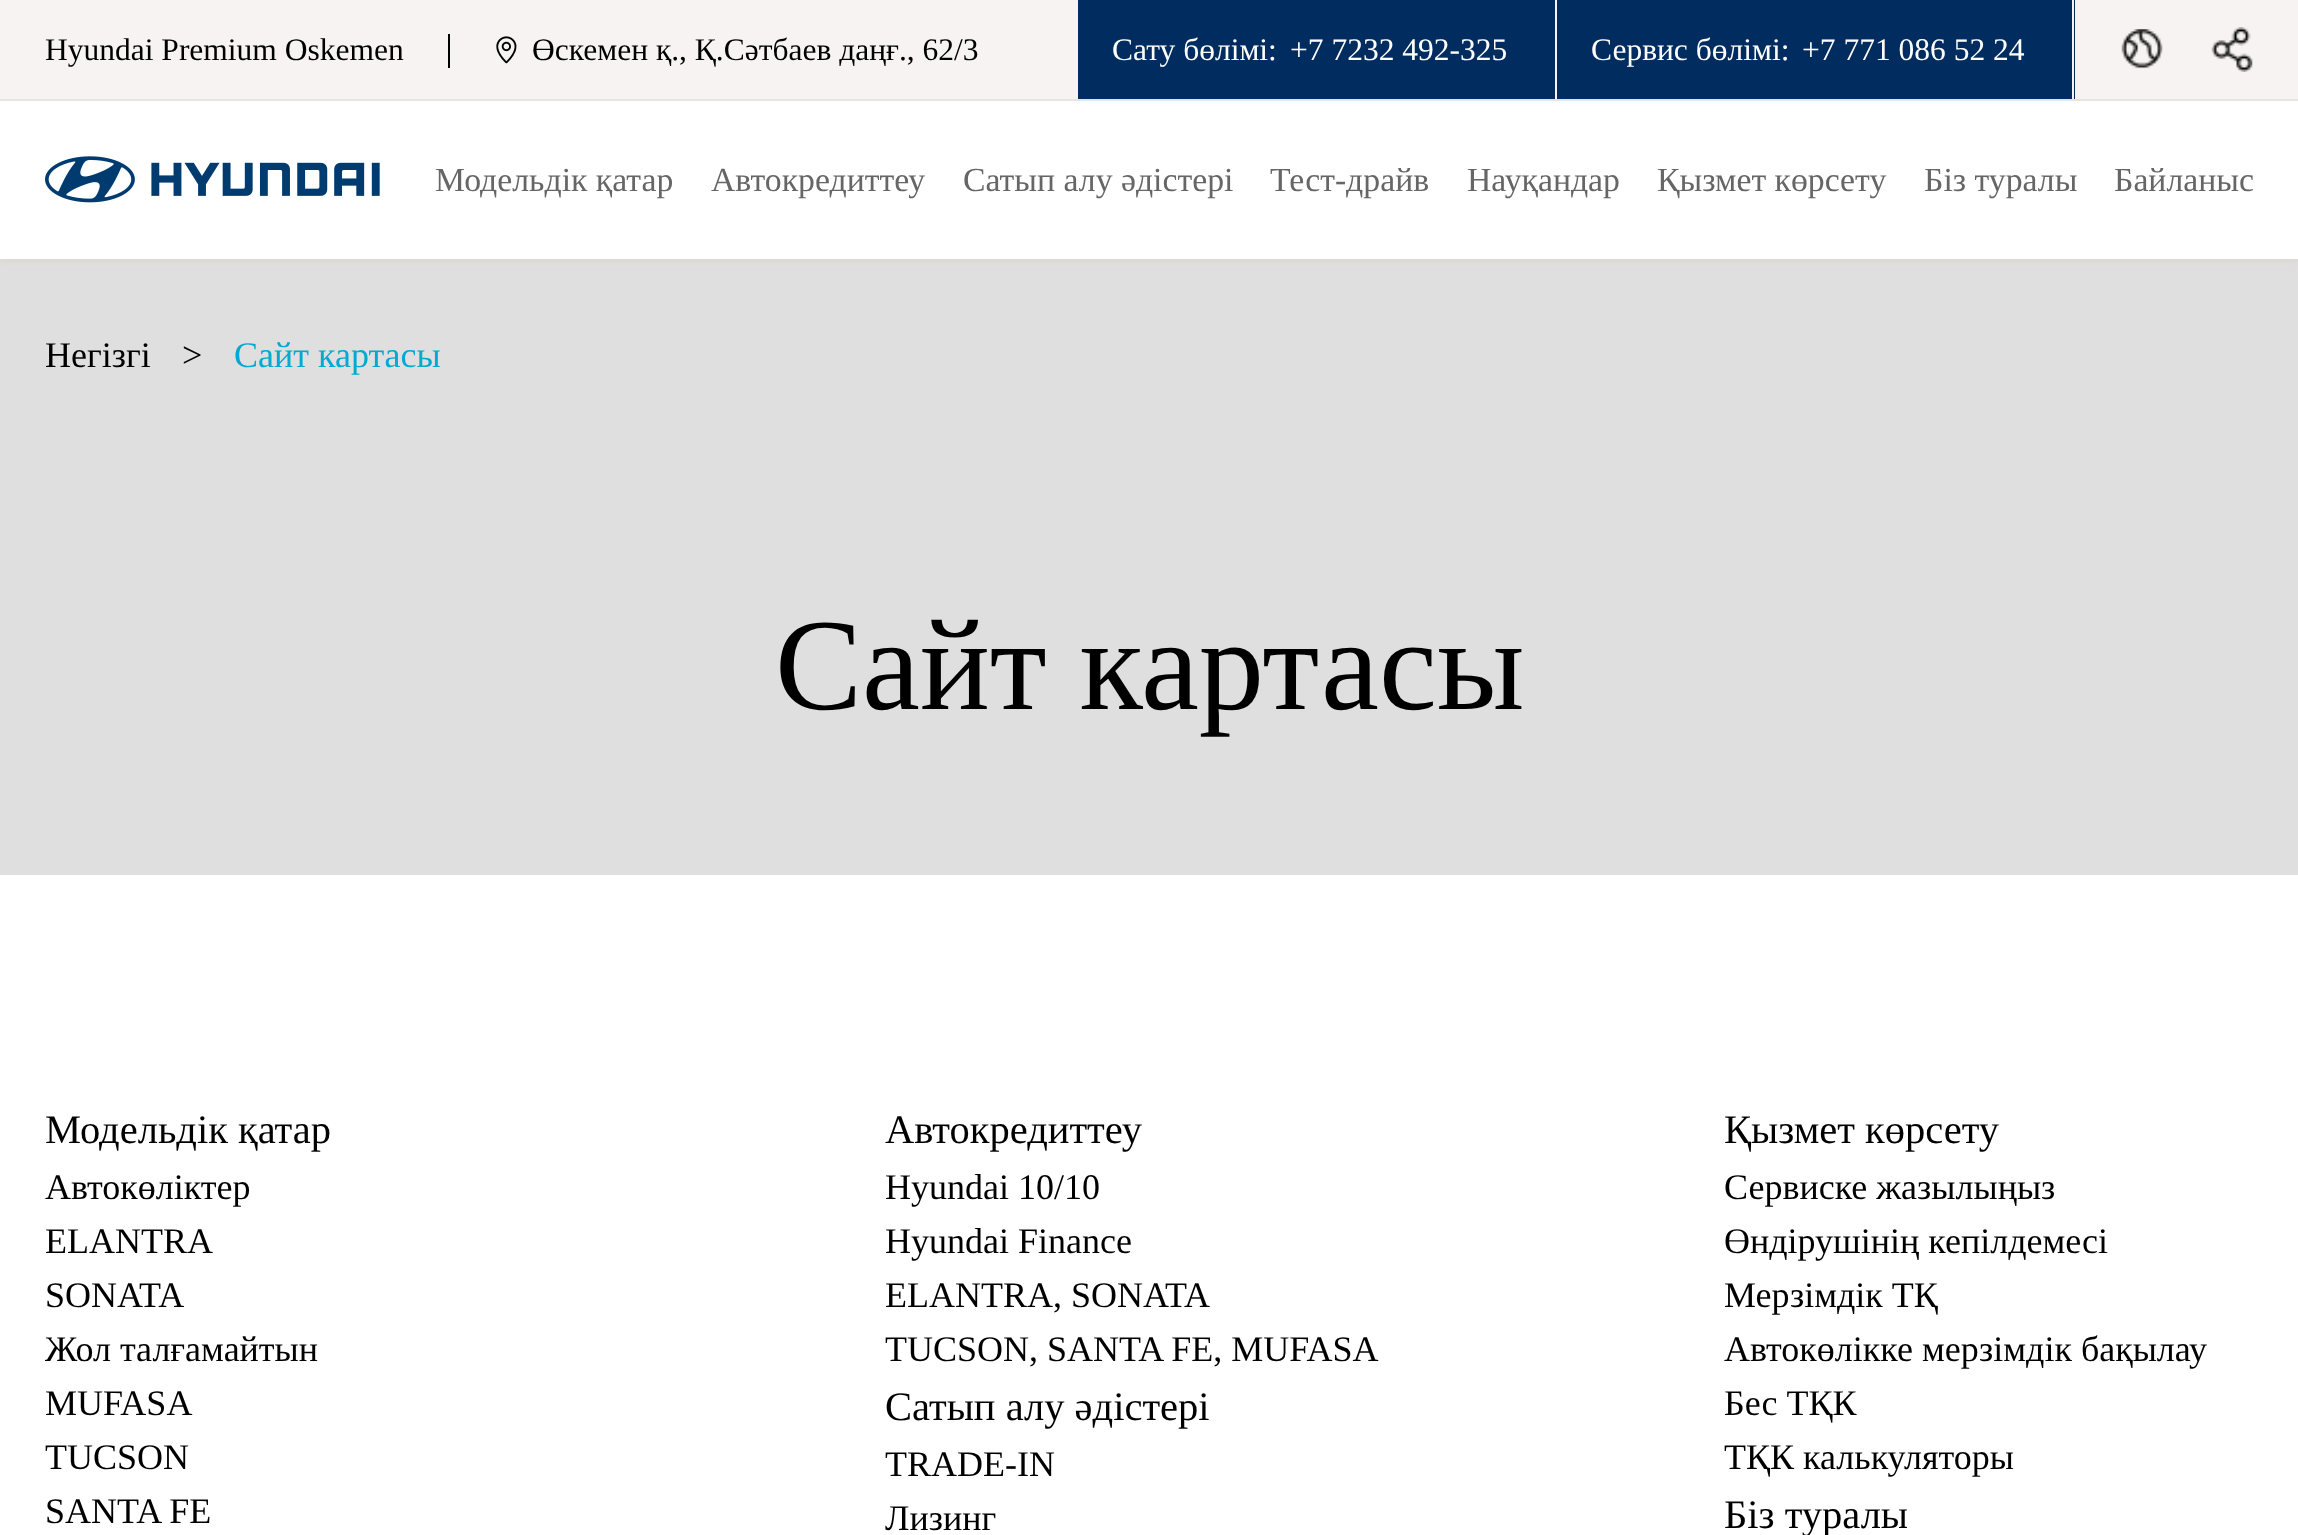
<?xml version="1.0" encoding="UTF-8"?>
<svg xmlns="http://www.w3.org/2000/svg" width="2298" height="1535">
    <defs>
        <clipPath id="clip1"><path d="M 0 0 H 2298 V 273 H 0 Z M 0 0 H 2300 V 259 H 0 Z" clip-rule="evenodd"/></clipPath>
        <filter id="blur1" x="-50%" y="-200%" width="200%" height="500%"><feGaussianBlur stdDeviation="3.5"/></filter>
    </defs>
    <rect width="100%" height="100%" fill="#FFFFFF"/>
    <rect x="0" y="259" width="2298" height="616" fill="#DFDFDF"/>
    <g clip-path="url(#clip1)">
        <rect x="0" y="2" width="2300" height="259" fill="#D8D1C8" fill-opacity="0.7" filter="url(#blur1)"/>
    </g>
    <rect x="0" y="0" width="2298" height="99" fill="#F6F3F2"/>
    <rect x="0" y="99" width="2298" height="2" fill="#E5E5E5"/>
    <text x="45" y="60" font-family="Liberation Serif" font-size="31.5" fill="#000000">Hyundai Premium Oskemen</text>
    <rect x="448" y="34" width="2" height="34" fill="#000000"/>
    <image x="496" y="36" width="21" height="28" href="img_01.png"/>
    <text x="532" y="60" font-family="Liberation Serif" font-size="31.5" fill="#000000">Өскемен қ., Қ.Сәтбаев даңғ., 62/3</text>
    <rect x="1078" y="0" width="477" height="99" fill="#002C5F"/>
    <text x="1112" y="60" font-family="Liberation Serif" font-size="31.5" fill="#FFFFFF">Сату бөлімі:</text>
    <text x="1290" y="60" font-family="Liberation Serif" font-size="31.5" fill="#FFFFFF">+7 7232 492-325</text>
    <rect x="1557" y="0" width="518" height="99" fill="#002C5F"/>
    <rect x="2072" y="0" width="2" height="99" fill="#F6F3F2"/>
    <text x="1591" y="60" font-family="Liberation Serif" font-size="31.5" fill="#FFFFFF">Сервис бөлімі:</text>
    <text x="1802" y="60" font-family="Liberation Serif" font-size="31.5" fill="#FFFFFF">+7 771 086 52 24</text>
    <image x="2121" y="29" width="42" height="40" href="img_02.png"/>
    <image x="2211" y="27" width="42" height="45" href="img_03.png"/>
    <image x="45" y="156" width="335" height="47" href="img_04.png"/>
    <text x="435" y="191" font-family="Liberation Serif" font-size="33.75" fill="#666666">Модельдік қатар</text>
    <text x="711" y="191" font-family="Liberation Serif" font-size="33.75" fill="#666666">Автокредиттеу</text>
    <text x="963" y="191" font-family="Liberation Serif" font-size="33.75" fill="#666666">Сатып алу әдістері</text>
    <text x="1270" y="191" font-family="Liberation Serif" font-size="33.75" fill="#666666">Тест-драйв</text>
    <text x="1467" y="191" font-family="Liberation Serif" font-size="33.75" fill="#666666">Науқандар</text>
    <text x="1657" y="191" font-family="Liberation Serif" font-size="33.75" fill="#666666">Қызмет көрсету</text>
    <text x="1924" y="191" font-family="Liberation Serif" font-size="33.75" fill="#666666">Біз туралы</text>
    <text x="2114" y="191" font-family="Liberation Serif" font-size="33.75" fill="#666666">Байланыс</text>
    <text x="45" y="367" font-family="Liberation Serif" font-size="36" fill="#000000">Негізгі</text>
    <text x="182" y="367" font-family="Liberation Serif" font-size="36" fill="#000000">&gt;</text>
    <text x="234" y="367" font-family="Liberation Serif" font-size="36" fill="#00AAD2">Сайт картасы</text>
    <text x="775" y="709" font-family="Liberation Serif" font-size="130.5" fill="#000000">Сайт картасы</text>
    <text x="45" y="1143" font-family="Liberation Serif" font-size="40.5" fill="#000000">Модельдік қатар</text>
    <text font-family="Liberation Serif" font-size="36" fill="#000000">
        <tspan x="45" y="1199">Автокөліктер</tspan>
        <tspan x="45" y="1253">ELANTRA</tspan>
        <tspan x="45" y="1307">SONATA</tspan>
        <tspan x="45" y="1361">Жол талғамайтын</tspan>
        <tspan x="45" y="1415">MUFASA</tspan>
        <tspan x="45" y="1469">TUCSON</tspan>
        <tspan x="45" y="1523">SANTA FE</tspan>
    </text>
    <text x="885" y="1143" font-family="Liberation Serif" font-size="40.5" fill="#000000">Автокредиттеу</text>
    <text font-family="Liberation Serif" font-size="36" fill="#000000">
        <tspan x="885" y="1199">Hyundai 10/10</tspan>
        <tspan x="885" y="1253">Hyundai Finance</tspan>
        <tspan x="885" y="1307">ELANTRA, SONATA</tspan>
        <tspan x="885" y="1361">TUCSON, SANTA FE, MUFASA</tspan>
    </text>
    <text x="1724" y="1143" font-family="Liberation Serif" font-size="40.5" fill="#000000">Қызмет көрсету</text>
    <text font-family="Liberation Serif" font-size="36" fill="#000000">
        <tspan x="1724" y="1199">Сервиске жазылыңыз</tspan>
        <tspan x="1724" y="1253">Өндірушінің кепілдемесі</tspan>
        <tspan x="1724" y="1307">Мерзімдік ТҚ</tspan>
        <tspan x="1724" y="1361">Автокөлікке мерзімдік бақылау</tspan>
        <tspan x="1724" y="1415">Бес ТҚК</tspan>
        <tspan x="1724" y="1469">ТҚК калькуляторы</tspan>
    </text>
    <text x="885" y="1420" font-family="Liberation Serif" font-size="40.5" fill="#000000">Сатып алу әдістері</text>
    <text font-family="Liberation Serif" font-size="36" fill="#000000">
        <tspan x="885" y="1476">TRADE-IN</tspan>
        <tspan x="885" y="1530">Лизинг</tspan>
    </text>
    <text x="1724" y="1528" font-family="Liberation Serif" font-size="40.5" fill="#000000">Біз туралы</text>
</svg>
